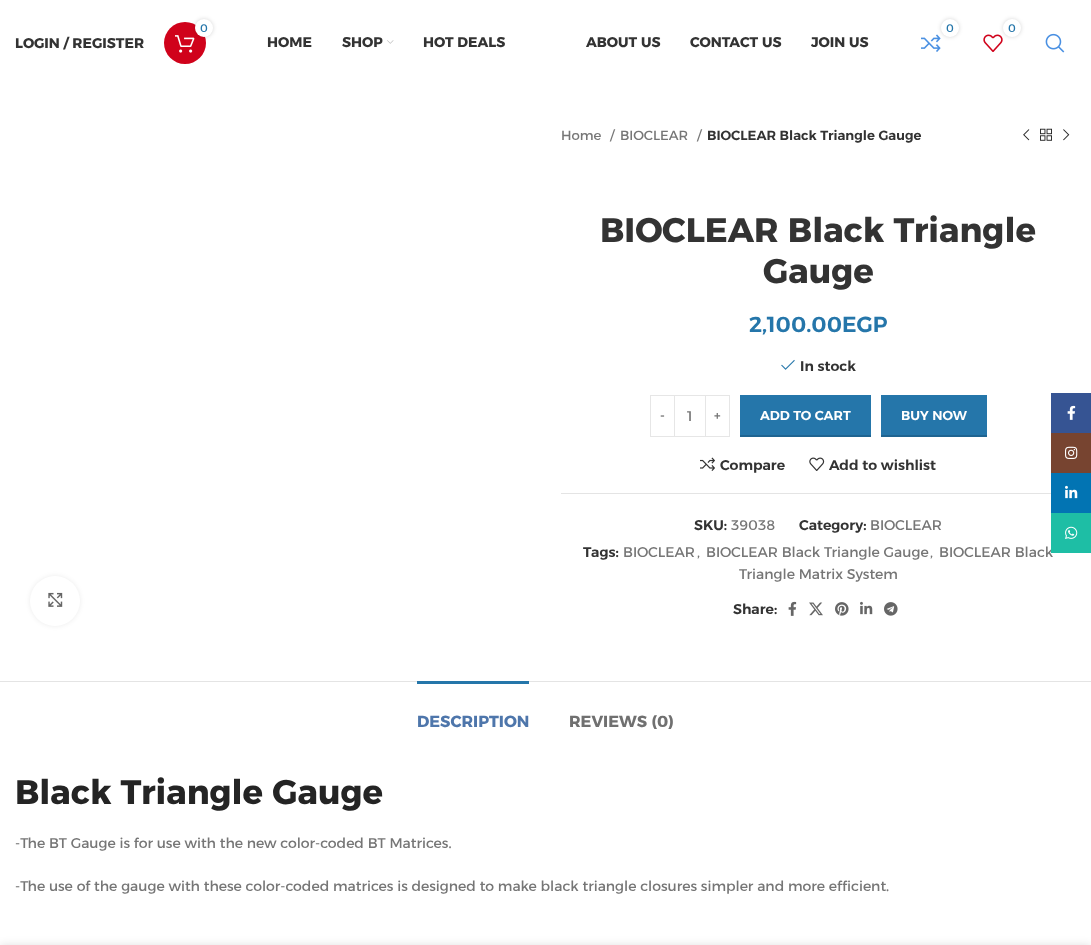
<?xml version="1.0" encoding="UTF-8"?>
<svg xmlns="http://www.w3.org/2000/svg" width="1091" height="945">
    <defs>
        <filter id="blur1" x="-50%" y="-200%" width="200%" height="500%"><feGaussianBlur stdDeviation="2"/></filter>
        <filter id="blur2" x="-50%" y="-200%" width="200%" height="500%"><feGaussianBlur stdDeviation="2.5"/></filter>
        <filter id="blur3" x="-50%" y="-200%" width="200%" height="500%"><feGaussianBlur stdDeviation="4.5"/></filter>
    </defs>
    <rect width="100%" height="100%" fill="#FFFFFF"/>
    <circle cx="185" cy="43" r="21" fill="#D0021B"/>
    <image x="175" y="35" width="20" height="18" href="img_01.png"/>
    <rect x="195" y="19" width="18" height="18" rx="9" fill="#000000" fill-opacity="0.17" filter="url(#blur1)"/>
    <circle cx="204" cy="28" r="9" fill="#FFFFFF"/>
    <text x="200" y="32" font-family="Alexandria" font-size="11" fill="#2576AA">0</text>
    <text x="15" y="48" font-family="Alexandria" font-size="14" font-weight="700" fill="#333333">LOGIN / REGISTER</text>
    <text x="267" y="47" font-family="Alexandria" font-size="14" font-weight="700" fill="#333333">HOME</text>
    <text x="342" y="47" font-family="Alexandria" font-size="14" font-weight="700" fill="#333333">SHOP</text>
    <image x="387" y="40" width="7" height="4" href="img_02.png"/>
    <text x="423" y="47" font-family="Alexandria" font-size="14" font-weight="700" fill="#333333">HOT DEALS</text>
    <image x="921" y="34" width="20" height="18" href="img_03.png"/>
    <rect x="941" y="19" width="18" height="18" rx="9" fill="#000000" fill-opacity="0.17" filter="url(#blur1)"/>
    <circle cx="950" cy="28" r="9" fill="#FFFFFF"/>
    <text x="946" y="32" font-family="Alexandria" font-size="11" fill="#2576AA">0</text>
    <image x="983" y="34" width="20" height="18" href="img_04.png"/>
    <rect x="1003" y="19" width="18" height="18" rx="9" fill="#000000" fill-opacity="0.17" filter="url(#blur1)"/>
    <circle cx="1012" cy="28" r="9" fill="#FFFFFF"/>
    <text x="1008" y="32" font-family="Alexandria" font-size="11" fill="#2576AA">0</text>
    <text x="586" y="47" font-family="Alexandria" font-size="14" font-weight="700" fill="#333333">ABOUT US</text>
    <text x="690" y="47" font-family="Alexandria" font-size="14" font-weight="700" fill="#333333">CONTACT US</text>
    <text x="811" y="47" font-family="Alexandria" font-size="14" font-weight="700" fill="#333333">JOIN US</text>
    <image x="1045" y="33" width="20" height="20" href="img_05.png"/>
    <rect x="30" y="576" width="50" height="50" rx="25" fill="#000000" fill-opacity="0.08" filter="url(#blur2)"/>
    <circle cx="55" cy="601" r="25" fill="#FFFFFF"/>
    <image x="48" y="592" width="15" height="15" href="img_06.png"/>
    <text x="561" y="140" font-family="Alexandria" font-size="13.25" fill="#767676">Home</text>
    <text x="610" y="140" font-family="Alexandria" font-size="13.25" fill="#767676">/</text>
    <text x="620" y="140" font-family="Alexandria" font-size="13.25" fill="#767676">BIOCLEAR</text>
    <text x="697" y="140" font-family="Alexandria" font-size="13.25" fill="#767676">/</text>
    <text x="707" y="140" font-family="Alexandria" font-size="13.25" font-weight="600" fill="#333333">BIOCLEAR Black Triangle Gauge</text>
    <image x="1023" y="129" width="7" height="12" href="img_07.png"/>
    <image x="1040" y="128" width="12" height="13" href="img_08.png"/>
    <image x="1063" y="129" width="7" height="12" href="img_09.png"/>
    <text x="600" y="242" font-family="Alexandria" font-size="34" font-weight="700" fill="#333333">BIOCLEAR Black Triangle</text>
    <text x="763" y="283" font-family="Alexandria" font-size="34" font-weight="700" fill="#333333">Gauge</text>
    <text x="749" y="332" font-family="Alexandria" font-size="21.75" font-weight="600" fill="#2576AA">2,100.00EGP</text>
    <image x="781" y="359" width="14" height="11" href="img_10.png"/>
    <text x="800" y="371" font-family="Alexandria" font-size="14" font-weight="600" fill="#333333">In stock</text>
    <rect x="650.5" y="395.5" width="24" height="41" fill="none" stroke="#E6E6E6"/>
    <text x="660" y="420" font-family="Alexandria" font-size="13" font-weight="600" fill="#767676">-</text>
    <rect x="675" y="395" width="30" height="1" fill="#E6E6E6"/>
    <rect x="675" y="436" width="30" height="1" fill="#E6E6E6"/>
    <text x="687" y="421" font-family="Alexandria" font-size="14" fill="#767676">1</text>
    <rect x="705.5" y="395.5" width="24" height="41" fill="none" stroke="#E6E6E6"/>
    <text x="714" y="420" font-family="Alexandria" font-size="13" font-weight="600" fill="#767676">+</text>
    <rect x="740" y="395" width="131" height="40" fill="#2576AA"/>
    <rect x="740" y="435" width="131" height="2" fill="#1F6491"/>
    <text x="760" y="420" font-family="Alexandria" font-size="13" font-weight="600" fill="#FFFFFF">ADD TO CART</text>
    <rect x="881" y="395" width="106" height="40" fill="#2576AA"/>
    <rect x="881" y="435" width="106" height="2" fill="#1F6491"/>
    <text x="901" y="420" font-family="Alexandria" font-size="13" font-weight="600" fill="#FFFFFF">BUY NOW</text>
    <image x="700" y="457" width="15" height="14" href="img_11.png"/>
    <text x="720" y="470" font-family="Alexandria" font-size="14" font-weight="600" fill="#333333">Compare</text>
    <image x="809" y="457" width="16" height="14" href="img_12.png"/>
    <text x="829" y="470" font-family="Alexandria" font-size="14" font-weight="600" fill="#333333">Add to wishlist</text>
    <rect x="561" y="493" width="490" height="1" fill="#E4E4E4"/>
    <text x="694" y="530" font-family="Alexandria" font-size="14" font-weight="600" fill="#333333">SKU:</text>
    <text x="731" y="530" font-family="Alexandria" font-size="14" fill="#767676">39038</text>
    <text x="799" y="530" font-family="Alexandria" font-size="14" font-weight="600" fill="#333333">Category:</text>
    <text x="870" y="530" font-family="Alexandria" font-size="14" fill="#767676">BIOCLEAR</text>
    <text x="583" y="557" font-family="Alexandria" font-size="14" font-weight="600" fill="#333333">Tags:</text>
    <text x="623" y="557" font-family="Alexandria" font-size="14" fill="#767676">BIOCLEAR</text>
    <text x="697" y="557" font-family="Alexandria" font-size="14" fill="#767676">,</text>
    <text x="706" y="557" font-family="Alexandria" font-size="14" fill="#767676">BIOCLEAR Black Triangle Gauge</text>
    <text x="930" y="557" font-family="Alexandria" font-size="14" fill="#767676">,</text>
    <text x="939" y="557" font-family="Alexandria" font-size="14" fill="#767676">BIOCLEAR Black</text>
    <text x="739" y="579" font-family="Alexandria" font-size="14" fill="#767676">Triangle Matrix System</text>
    <text x="733" y="614" font-family="Alexandria" font-size="14" font-weight="600" fill="#333333">Share:</text>
    <image x="788" y="601" width="9" height="15" href="img_13.png"/>
    <image x="809" y="602" width="14" height="14" href="img_14.png"/>
    <image x="835" y="602" width="14" height="14" href="img_15.png"/>
    <image x="860" y="601" width="13" height="14" href="img_16.png"/>
    <image x="884" y="602" width="14" height="14" href="img_17.png"/>
    <rect x="0" y="681" width="1091" height="1" fill="#E4E4E4"/>
    <rect x="417" y="681" width="112" height="3" fill="#2576AA"/>
    <text x="417" y="727" font-family="Alexandria" font-size="16" font-weight="700" fill="#4E76AB">DESCRIPTION</text>
    <text x="569" y="727" font-family="Alexandria" font-size="16" font-weight="700" fill="#707070">REVIEWS (0)</text>
    <text x="15" y="804" font-family="Alexandria" font-size="34" font-weight="700" fill="#242424">Black Triangle Gauge</text>
    <text x="15" y="848" font-family="Alexandria" font-size="14" fill="#767676">-The BT Gauge is for use with the new color-coded BT Matrices.</text>
    <text x="15" y="891" font-family="Alexandria" font-size="14" fill="#767676">-The use of the gauge with these color-coded matrices is designed to make black triangle closures simpler and more efficient.</text>
    <rect x="1051" y="393" width="40" height="40" fill="#365493"/>
    <image x="1067" y="405" width="9" height="15" href="img_18.png"/>
    <rect x="1051" y="433" width="40" height="40" fill="#774430"/>
    <image x="1065" y="446" width="13" height="13" href="img_19.png"/>
    <rect x="1051" y="473" width="40" height="40" fill="#0274B3"/>
    <image x="1065" y="485" width="13" height="14" href="img_20.png"/>
    <rect x="1051" y="513" width="40" height="40" fill="#1EBEA5"/>
    <image x="1065" y="526" width="13" height="13" href="img_21.png"/>
    <rect x="0" y="945" width="1091" height="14" fill="#000000" fill-opacity="0.12" filter="url(#blur3)"/>
</svg>
